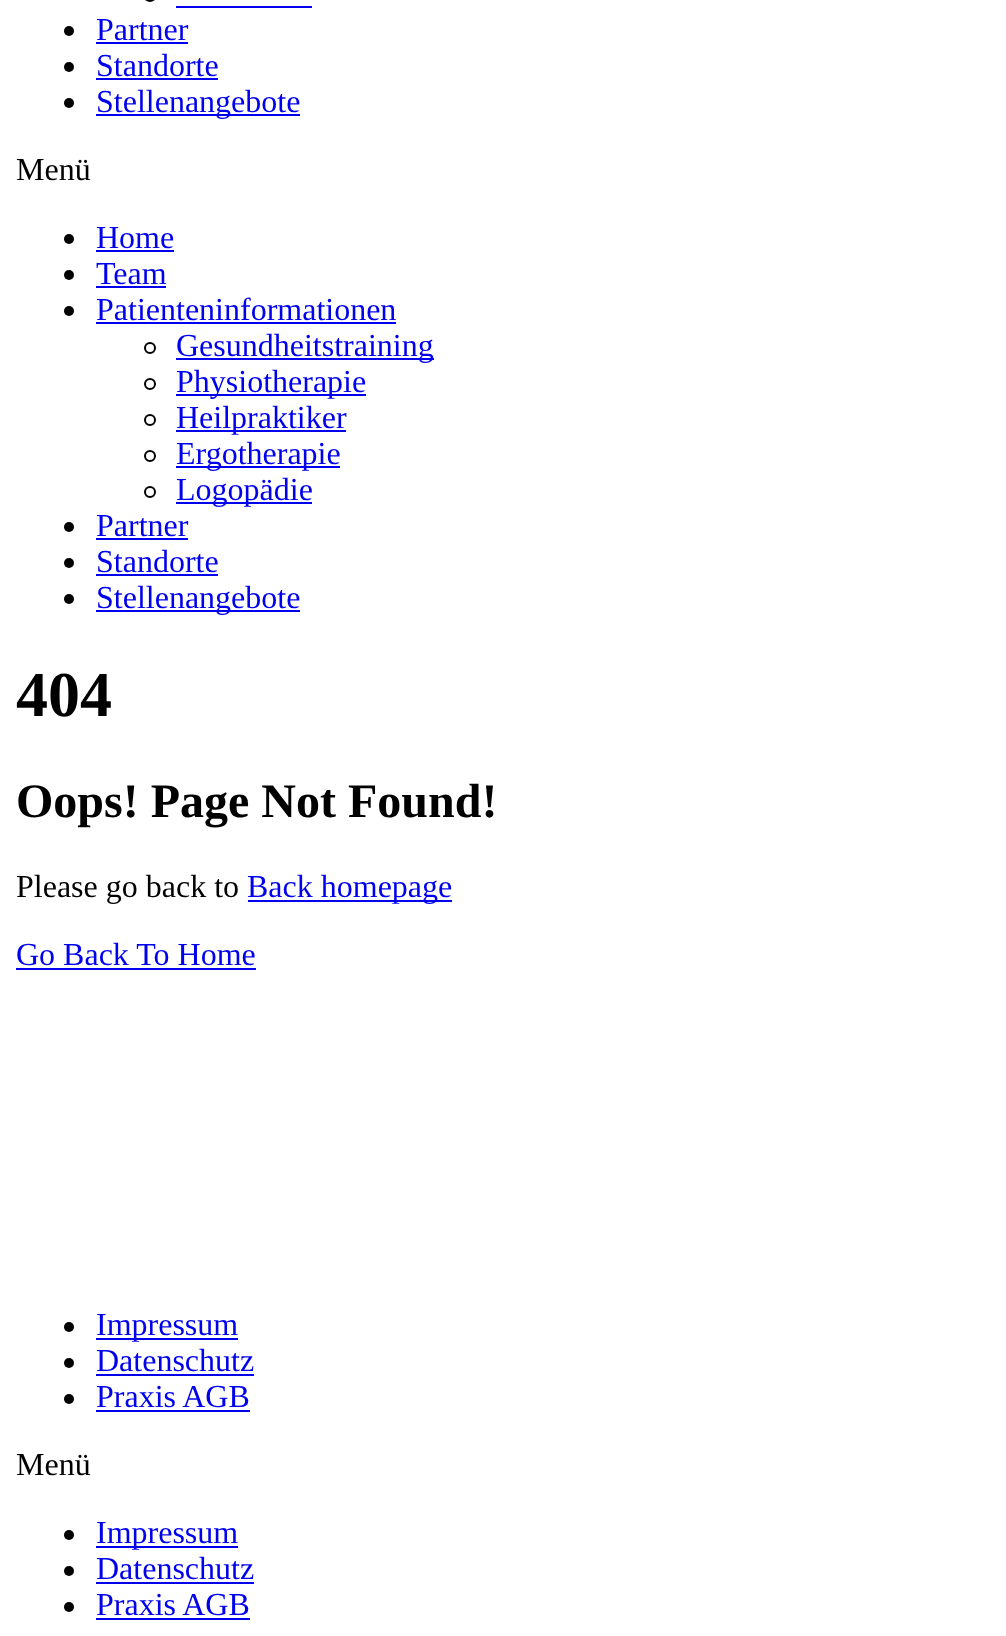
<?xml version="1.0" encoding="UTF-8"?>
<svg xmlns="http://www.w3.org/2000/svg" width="1006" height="1636">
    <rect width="100%" height="100%" fill="#FFFFFF"/>
    <rect x="145" y="-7" width="10" height="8" rx="5" fill="none" stroke="#000000" stroke-width="2"/>
    <rect x="176" y="6" width="136" height="2" fill="#0000EE"/>
    <circle cx="69" cy="31" r="5" fill="#000000"/>
    <text x="96" y="40" font-family="Liberation Serif" font-size="32" fill="#0000EE">Partner</text>
    <rect x="96" y="42" width="92" height="2" fill="#0000EE"/>
    <circle cx="69" cy="67" r="5" fill="#000000"/>
    <text x="96" y="76" font-family="Liberation Serif" font-size="32" fill="#0000EE">Standorte</text>
    <rect x="96" y="78" width="122" height="2" fill="#0000EE"/>
    <circle cx="69" cy="103" r="5" fill="#000000"/>
    <rect x="96" y="114" width="204" height="2" fill="#0000EE"/>
    <text x="96" y="112" font-family="Liberation Serif" font-size="32" fill="#0000EE">Stellenangebote</text>
    <text x="16" y="180" font-family="Liberation Serif" font-size="32" fill="#000000">Menü</text>
    <circle cx="69" cy="239" r="5" fill="#000000"/>
    <text x="96" y="248" font-family="Liberation Serif" font-size="32" fill="#0000EE">Home</text>
    <rect x="96" y="250" width="78" height="2" fill="#0000EE"/>
    <circle cx="69" cy="275" r="5" fill="#000000"/>
    <text x="96" y="284" font-family="Liberation Serif" font-size="32" fill="#0000EE">Team</text>
    <rect x="96" y="286" width="70" height="2" fill="#0000EE"/>
    <circle cx="69" cy="311" r="5" fill="#000000"/>
    <text x="96" y="320" font-family="Liberation Serif" font-size="32" fill="#0000EE">Patienteninformationen</text>
    <rect x="96" y="322" width="300" height="2" fill="#0000EE"/>
    <circle cx="150" cy="348" r="5" fill="none" stroke="#000000" stroke-width="2"/>
    <rect x="176" y="358" width="258" height="2" fill="#0000EE"/>
    <text x="176" y="356" font-family="Liberation Serif" font-size="32" fill="#0000EE">Gesundheitstraining</text>
    <circle cx="150" cy="384" r="5" fill="none" stroke="#000000" stroke-width="2"/>
    <rect x="176" y="394" width="190" height="2" fill="#0000EE"/>
    <text x="176" y="392" font-family="Liberation Serif" font-size="32" fill="#0000EE">Physiotherapie</text>
    <circle cx="150" cy="420" r="5" fill="none" stroke="#000000" stroke-width="2"/>
    <rect x="176" y="430" width="170" height="2" fill="#0000EE"/>
    <text x="176" y="428" font-family="Liberation Serif" font-size="32" fill="#0000EE">Heilpraktiker</text>
    <circle cx="150" cy="456" r="5" fill="none" stroke="#000000" stroke-width="2"/>
    <rect x="176" y="466" width="164" height="2" fill="#0000EE"/>
    <text x="176" y="464" font-family="Liberation Serif" font-size="32" fill="#0000EE">Ergotherapie</text>
    <circle cx="150" cy="492" r="5" fill="none" stroke="#000000" stroke-width="2"/>
    <rect x="176" y="502" width="136" height="2" fill="#0000EE"/>
    <text x="176" y="500" font-family="Liberation Serif" font-size="32" fill="#0000EE">Logopädie</text>
    <circle cx="69" cy="527" r="5" fill="#000000"/>
    <text x="96" y="536" font-family="Liberation Serif" font-size="32" fill="#0000EE">Partner</text>
    <rect x="96" y="538" width="92" height="2" fill="#0000EE"/>
    <circle cx="69" cy="563" r="5" fill="#000000"/>
    <text x="96" y="572" font-family="Liberation Serif" font-size="32" fill="#0000EE">Standorte</text>
    <rect x="96" y="574" width="122" height="2" fill="#0000EE"/>
    <circle cx="69" cy="599" r="5" fill="#000000"/>
    <rect x="96" y="610" width="204" height="2" fill="#0000EE"/>
    <text x="96" y="608" font-family="Liberation Serif" font-size="32" fill="#0000EE">Stellenangebote</text>
    <text x="16" y="716" font-family="Liberation Serif" font-size="64" font-weight="700" fill="#000000">404</text>
    <text x="16" y="817" font-family="Liberation Serif" font-size="48" font-weight="700" fill="#000000">Oops! Page Not Found!</text>
    <text x="16" y="897" font-family="Liberation Serif" font-size="32" fill="#000000">Please go back to</text>
    <rect x="248" y="900" width="204" height="2" fill="#0000EE"/>
    <text x="247" y="897" font-family="Liberation Serif" font-size="32" fill="#0000EE">Back homepage</text>
    <text x="16" y="965" font-family="Liberation Serif" font-size="32" fill="#0000EE">Go Back To Home</text>
    <rect x="16" y="968" width="240" height="2" fill="#0000EE"/>
    <circle cx="69" cy="1327" r="5" fill="#000000"/>
    <rect x="96" y="1338" width="142" height="2" fill="#0000EE"/>
    <text x="96" y="1335" font-family="Liberation Serif" font-size="32" fill="#0000EE">Impressum</text>
    <circle cx="69" cy="1363" r="5" fill="#000000"/>
    <text x="96" y="1371" font-family="Liberation Serif" font-size="32" fill="#0000EE">Datenschutz</text>
    <rect x="96" y="1374" width="158" height="2" fill="#0000EE"/>
    <circle cx="69" cy="1399" r="5" fill="#000000"/>
    <text x="96" y="1407" font-family="Liberation Serif" font-size="32" fill="#0000EE">Praxis AGB</text>
    <rect x="96" y="1410" width="154" height="2" fill="#0000EE"/>
    <text x="16" y="1475" font-family="Liberation Serif" font-size="32" fill="#000000">Menü</text>
    <circle cx="69" cy="1535" r="5" fill="#000000"/>
    <rect x="96" y="1546" width="142" height="2" fill="#0000EE"/>
    <text x="96" y="1543" font-family="Liberation Serif" font-size="32" fill="#0000EE">Impressum</text>
    <circle cx="69" cy="1571" r="5" fill="#000000"/>
    <text x="96" y="1579" font-family="Liberation Serif" font-size="32" fill="#0000EE">Datenschutz</text>
    <rect x="96" y="1582" width="158" height="2" fill="#0000EE"/>
    <circle cx="69" cy="1607" r="5" fill="#000000"/>
    <text x="96" y="1615" font-family="Liberation Serif" font-size="32" fill="#0000EE">Praxis AGB</text>
    <rect x="96" y="1618" width="154" height="2" fill="#0000EE"/>
</svg>
